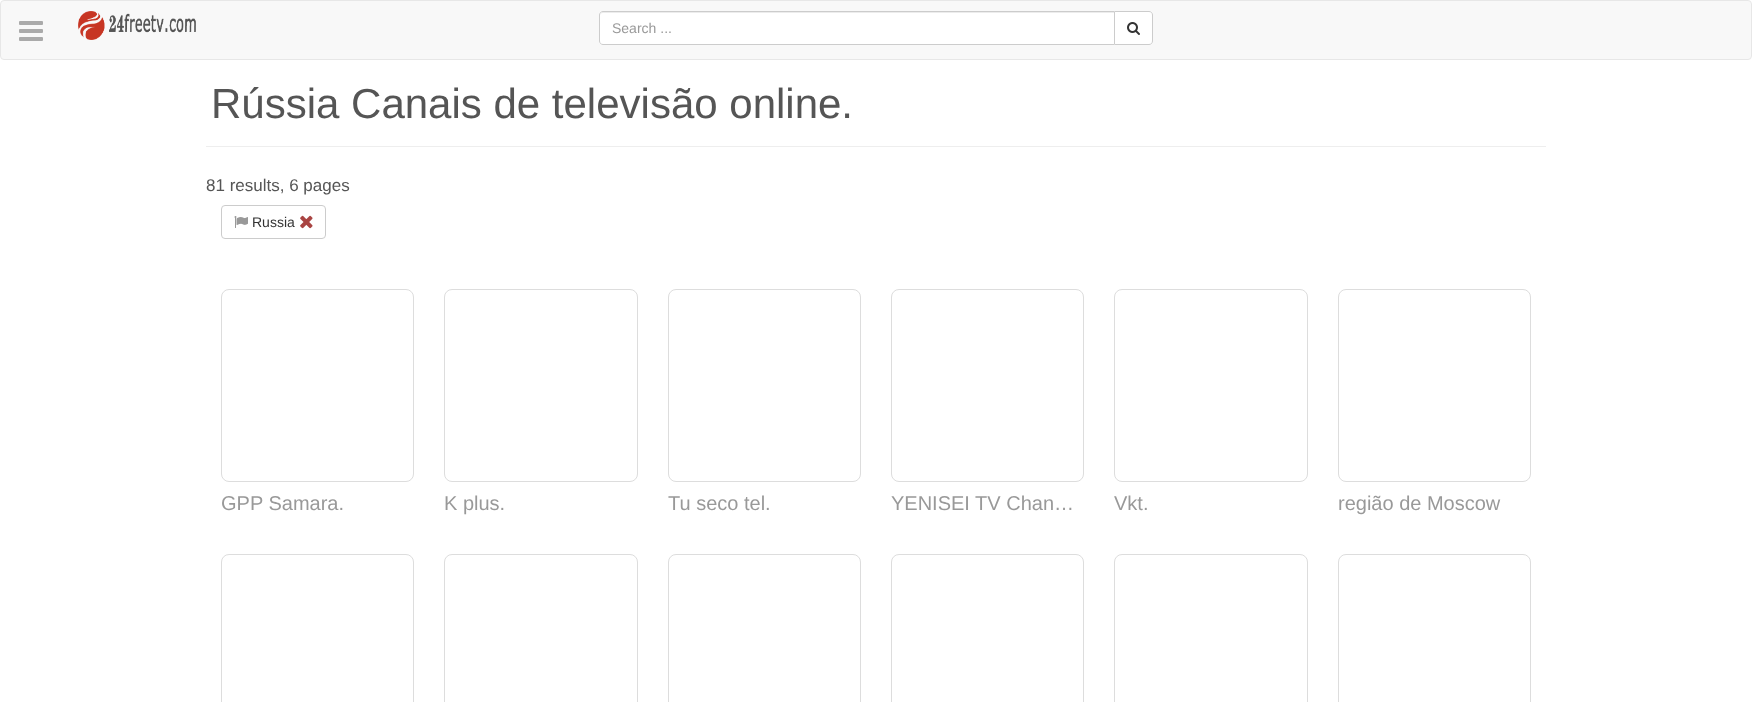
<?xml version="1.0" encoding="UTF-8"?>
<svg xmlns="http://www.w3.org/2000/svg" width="1752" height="702">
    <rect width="100%" height="100%" fill="#FFFFFF"/>
    <rect x="0.5" y="0.5" width="1751" height="59" rx="3.5" fill="#F8F8F8" stroke="#E7E7E7"/>
    <image x="19" y="21" width="24" height="20" href="img_01.png"/>
    <image x="78" y="11" width="118" height="29" href="img_02.png"/>
    <path d="M 1114.5 11.5 H 1149 C 1151 11.5 1152.5 13 1152.5 15 V 41 C 1152.5 43 1151 44.5 1149 44.5 H 1114.5 Z" fill="#FFFFFF" stroke="#CCCCCC"/>
    <path d="M 603 11 H 1115 V 45 H 603 C 601 45 599 43 599 41 V 15 C 599 13 601 11 603 11 Z" fill="#FFFFFF"/>
    <path d="M 603 13 H 1114 V 12 H 603 C 601 12 600 14 600 16 C 600 14 601 13 603 13 Z" fill="#ECECEC"/>
    <path d="M 603 11.5 H 1114.5 V 44.5 H 603 C 601 44.5 599.5 43 599.5 41 V 15 C 599.5 13 601 11.5 603 11.5 Z" fill="none" stroke="#CCCCCC"/>
    <text x="612" y="33" font-family="Liberation Sans" font-size="14" fill="#999999">Search ...</text>
    <image x="1127" y="22" width="13" height="13" href="img_03.png"/>
    <rect x="206" y="146" width="1340" height="1" fill="#EEEEEE"/>
    <text x="211" y="118" font-family="Liberation Sans" font-size="42" fill="#555555">Rússia Canais de televisão online.</text>
    <text x="206" y="191" font-family="Liberation Sans" font-size="17" fill="#555555">81 results, 6 pages</text>
    <rect x="221.5" y="205.5" width="104" height="33" rx="3.5" fill="none" stroke="#CCCCCC"/>
    <image x="234" y="216" width="14" height="12" href="img_04.png"/>
    <text x="252" y="227" font-family="Liberation Sans" font-size="14" fill="#333333">Russia</text>
    <image x="300" y="215" width="13" height="14" href="img_05.png"/>
    <rect x="221.5" y="289.5" width="192" height="192" rx="7.5" fill="none" stroke="#DDDDDD"/>
    <text x="221" y="510" font-family="Liberation Sans" font-size="20" fill="#999999">GPP Samara.</text>
    <rect x="444.5" y="289.5" width="193" height="192" rx="7.5" fill="none" stroke="#DDDDDD"/>
    <text x="444" y="510" font-family="Liberation Sans" font-size="20" fill="#999999">K plus.</text>
    <rect x="668.5" y="289.5" width="192" height="192" rx="7.5" fill="none" stroke="#DDDDDD"/>
    <text x="668" y="510" font-family="Liberation Sans" font-size="20" fill="#999999">Tu seco tel.</text>
    <rect x="891.5" y="289.5" width="192" height="192" rx="7.5" fill="none" stroke="#DDDDDD"/>
    <text x="891" y="510" font-family="Liberation Sans" font-size="20" fill="#999999">YENISEI TV Chan…</text>
    <rect x="1114.5" y="289.5" width="193" height="192" rx="7.5" fill="none" stroke="#DDDDDD"/>
    <text x="1114" y="510" font-family="Liberation Sans" font-size="20" fill="#999999">Vkt.</text>
    <rect x="1338.5" y="289.5" width="192" height="192" rx="7.5" fill="none" stroke="#DDDDDD"/>
    <text x="1338" y="510" font-family="Liberation Sans" font-size="20" fill="#999999">região de Moscow</text>
    <rect x="221.5" y="554.5" width="192" height="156" rx="7.5" fill="none" stroke="#DDDDDD"/>
    <rect x="444.5" y="554.5" width="193" height="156" rx="7.5" fill="none" stroke="#DDDDDD"/>
    <rect x="668.5" y="554.5" width="192" height="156" rx="7.5" fill="none" stroke="#DDDDDD"/>
    <rect x="891.5" y="554.5" width="192" height="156" rx="7.5" fill="none" stroke="#DDDDDD"/>
    <rect x="1114.5" y="554.5" width="193" height="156" rx="7.5" fill="none" stroke="#DDDDDD"/>
    <rect x="1338.5" y="554.5" width="192" height="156" rx="7.5" fill="none" stroke="#DDDDDD"/>
</svg>
